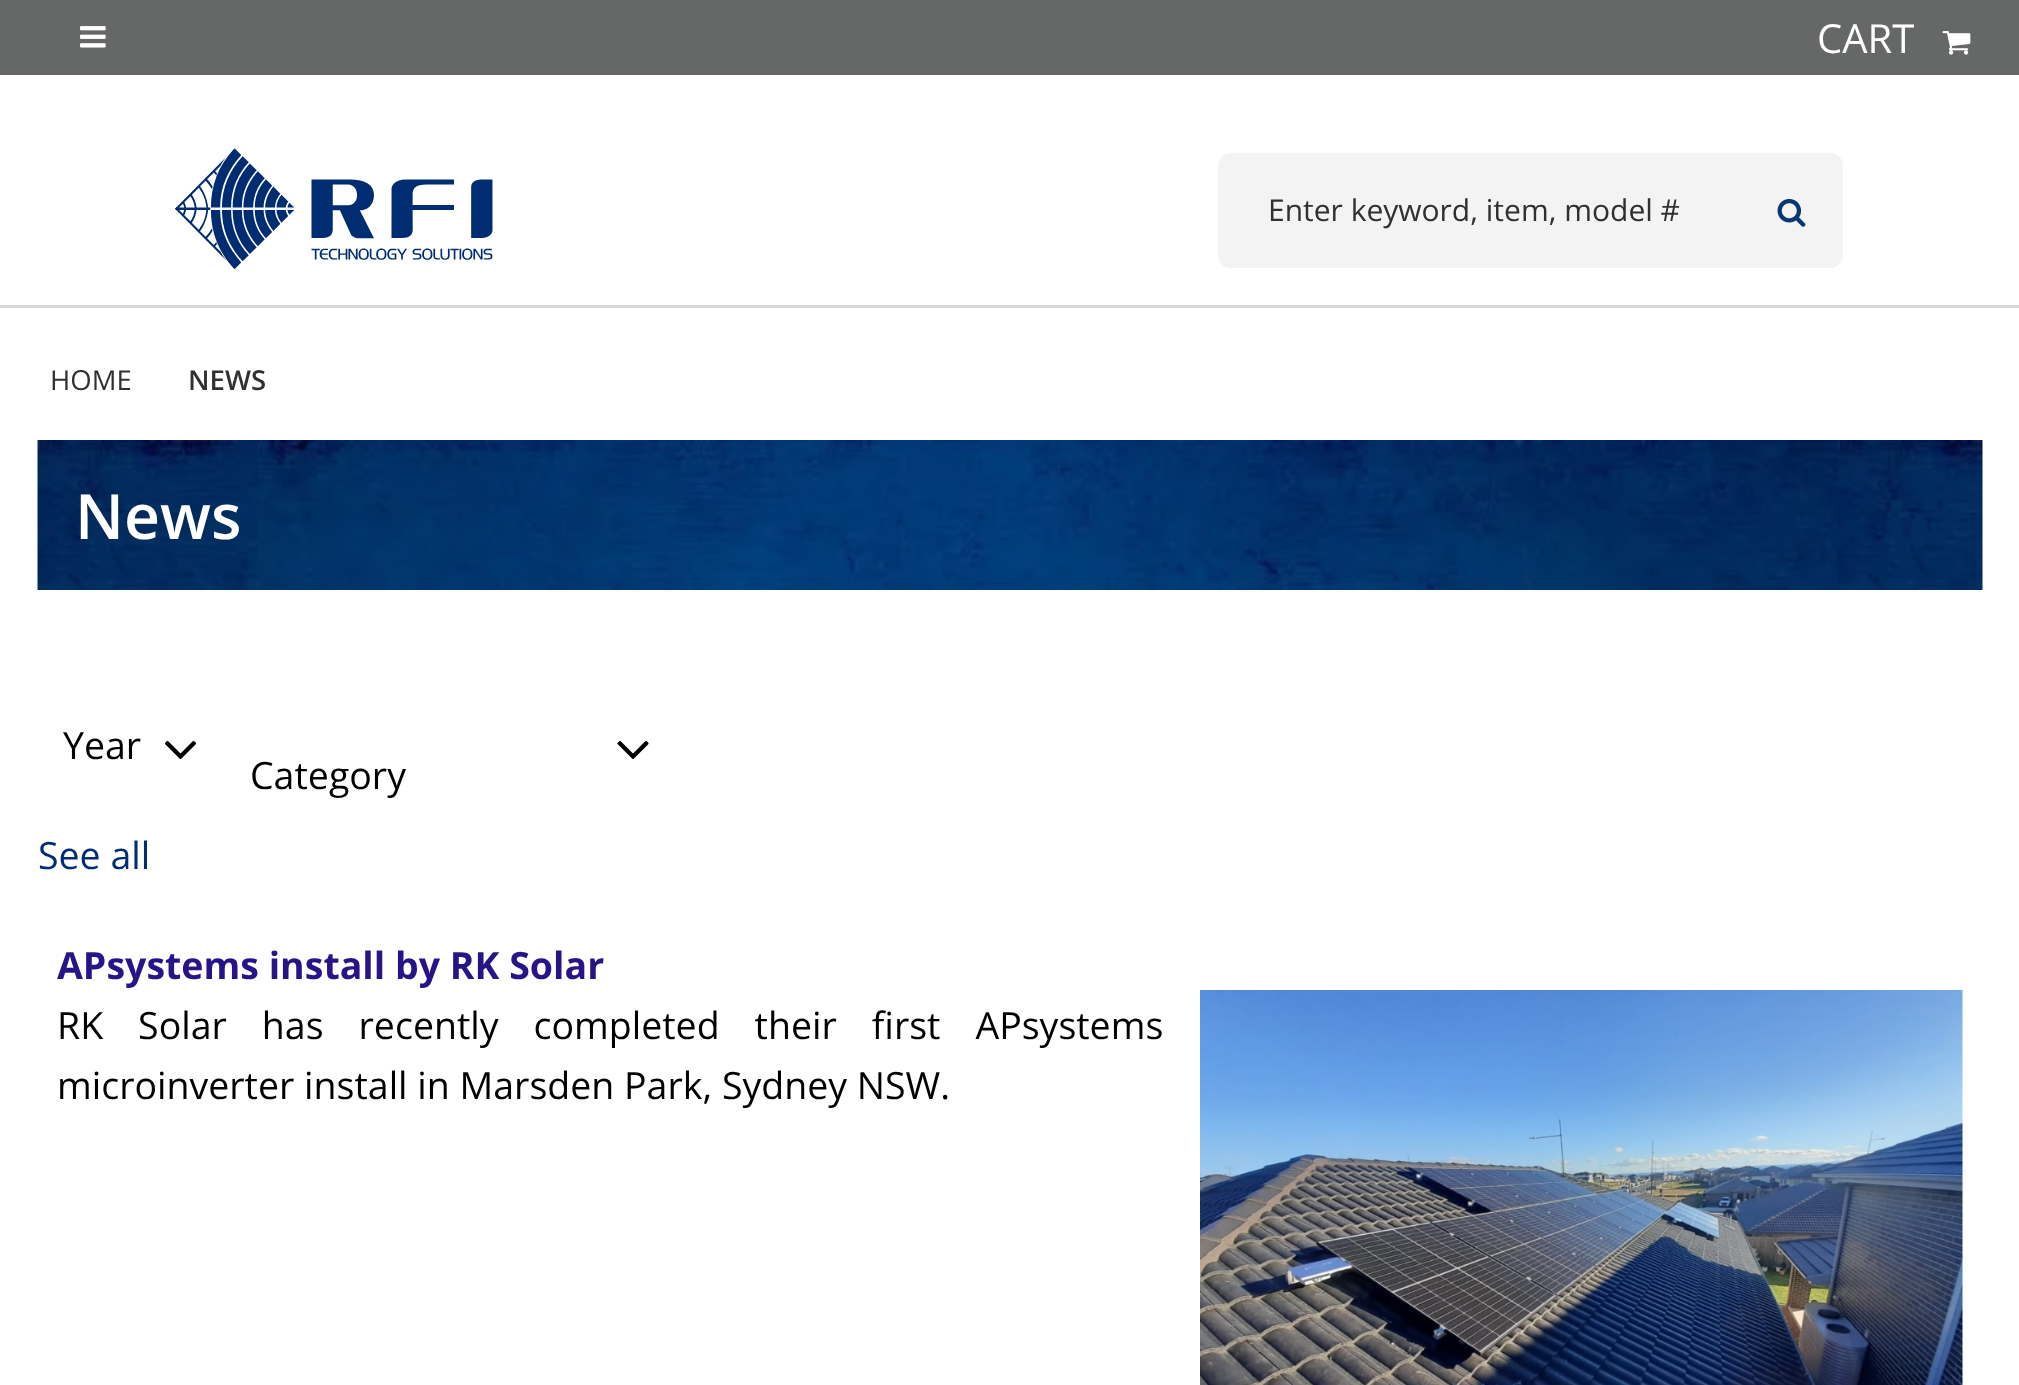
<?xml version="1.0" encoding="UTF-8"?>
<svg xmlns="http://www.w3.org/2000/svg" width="2019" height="1385">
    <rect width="100%" height="100%" fill="#FFFFFF"/>
    <rect x="0" y="305" width="2019" height="3" fill="#D8D8D8"/>
    <rect x="0" y="0" width="2019" height="75" fill="#666867"/>
    <text x="1817" y="53" font-family="Open Sans" font-size="40" fill="#FFFFFF">CART</text>
    <image x="1942" y="31" width="29" height="24" href="img_01.png"/>
    <image x="80" y="26" width="26" height="22" href="img_02.png"/>
    <image x="175" y="148" width="318" height="122" href="img_03.png"/>
    <rect x="1218" y="153" width="625" height="115" rx="13" fill="#F3F3F3"/>
    <text x="1268" y="221" font-family="Open Sans" font-size="30" fill="#303030">Enter keyword, item, model #</text>
    <path d="M 1743 153 H 1830 C 1837 153 1843 159 1843 166 V 255 C 1843 262 1837 268 1830 268 H 1743 Z" fill="#F3F3F3"/>
    <image x="1777" y="198" width="29" height="29" href="img_04.png"/>
    <text x="50" y="390" font-family="Open Sans" font-size="27.5" fill="#303030">HOME</text>
    <text x="188" y="390" font-family="Open Sans" font-size="27.5" font-weight="600" fill="#303030">NEWS</text>
    <image x="37" y="440" width="1946" height="150" href="img_05.png"/>
    <text x="75" y="539" font-family="Open Sans" font-size="62.5" font-weight="600" fill="#FFFFFF">News</text>
    <image x="164" y="740" width="33" height="20" href="img_06.png"/>
    <text x="63" y="759" font-family="Open Sans" font-size="37.5" fill="#000000">Year</text>
    <text x="38" y="869" font-family="Open Sans" font-size="37.5" fill="#002D72">See all</text>
    <image x="617" y="741" width="32" height="18" href="img_07.png"/>
    <text x="250" y="789" font-family="Open Sans" font-size="37.5" fill="#000000">Category</text>
    <text x="57" y="979" font-family="Open Sans" font-size="37.5" font-weight="700" fill="#271588">APsystems install by RK Solar</text>
    <text font-family="Open Sans" font-size="37.5" fill="#000000">
        <tspan x="57" y="1039" word-spacing="25.25">RK Solar has recently completed their first APsystems</tspan>
        <tspan x="57" y="1099">microinverter install in Marsden Park, Sydney NSW.</tspan>
    </text>
    <image x="1200" y="990" width="763" height="395" href="img_08.png"/>
</svg>
